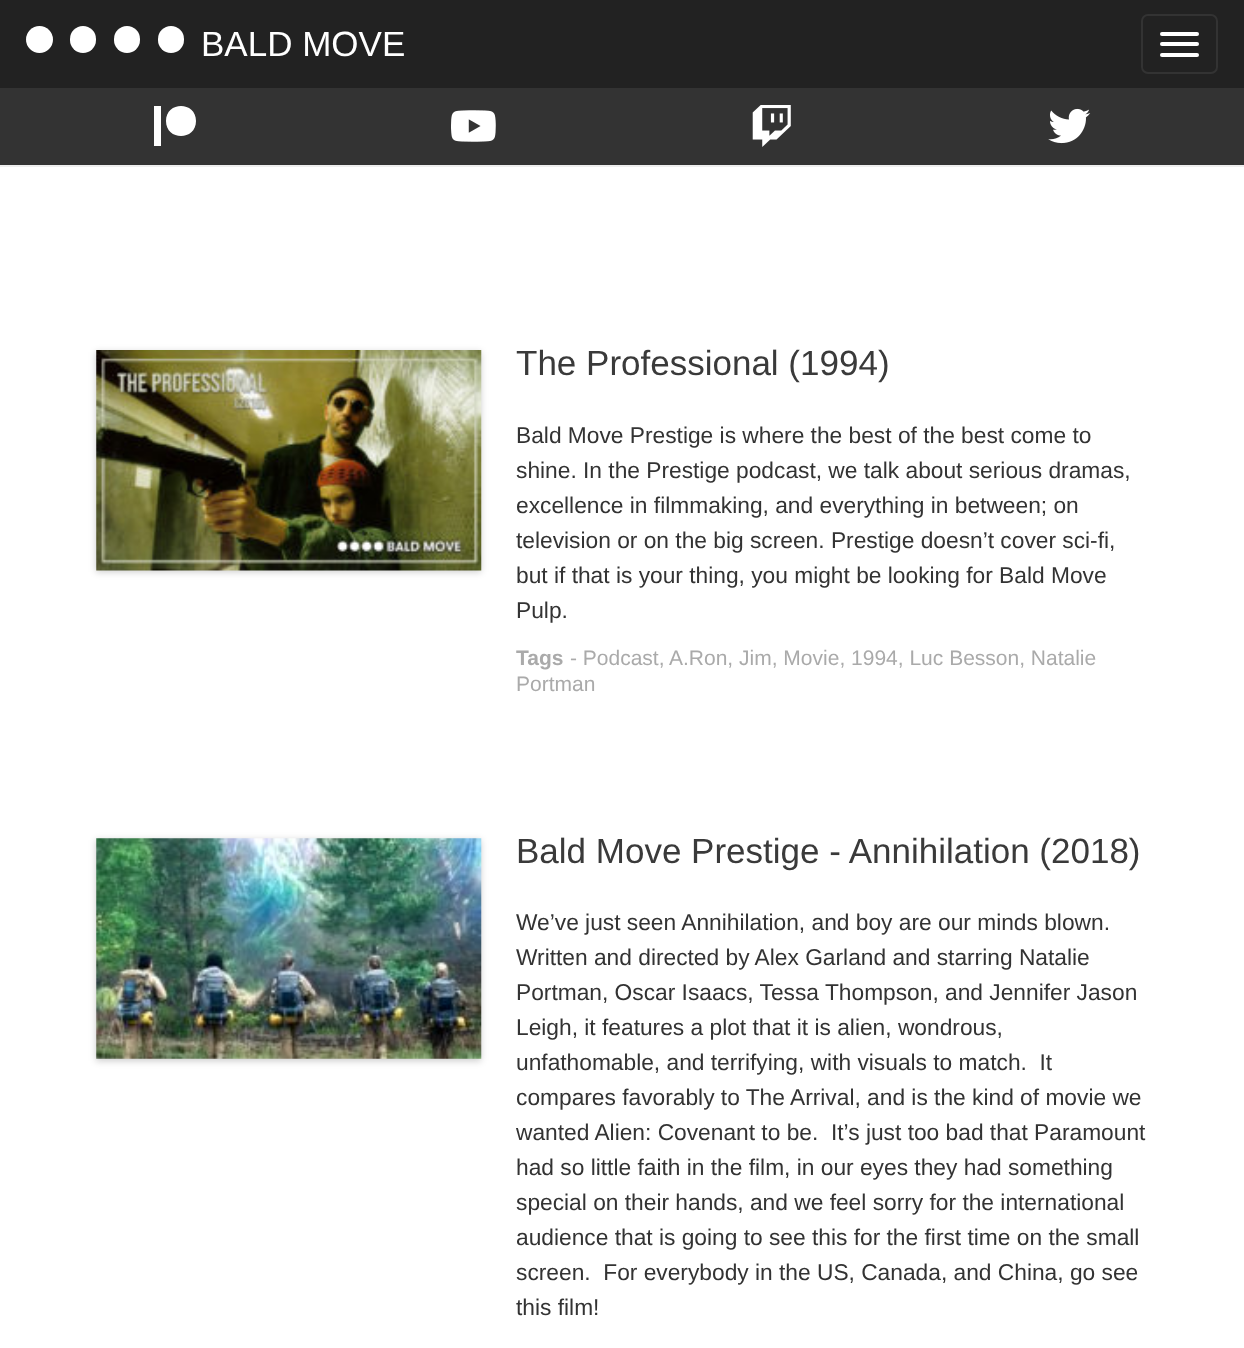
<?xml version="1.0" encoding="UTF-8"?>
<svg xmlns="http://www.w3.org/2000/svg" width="1244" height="1348">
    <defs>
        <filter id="blur1" x="-50%" y="-200%" width="200%" height="500%"><feGaussianBlur stdDeviation="3.5"/></filter>
    </defs>
    <rect width="100%" height="100%" fill="#333333"/>
    <rect x="0" y="0" width="1244" height="88" fill="#222222"/>
    <circle cx="39.5" cy="39.5" r="13.5" fill="#FFFFFF"/>
    <rect x="70" y="26" width="26" height="27" rx="13" fill="#FFFFFF"/>
    <rect x="114" y="26" width="26" height="27" rx="13" fill="#FFFFFF"/>
    <rect x="158" y="26" width="26" height="27" rx="13" fill="#FFFFFF"/>
    <text x="201" y="56" font-family="Liberation Sans" font-size="35" fill="#FFFFFF">BALD MOVE</text>
    <rect x="1142" y="15" width="75" height="58" rx="6" fill="none" stroke="#333333" stroke-width="2"/>
    <rect x="1160" y="32" width="39" height="4" rx="2" fill="#FFFFFF"/>
    <rect x="1160" y="42" width="39" height="4" rx="2" fill="#FFFFFF"/>
    <rect x="1160" y="53" width="39" height="4" rx="2" fill="#FFFFFF"/>
    <path d="M 196 121 C 196 141 166 141 166 121 C 166 101 196 101 196 121 Z M 154 146 V 106 H 161 V 146 Z" fill="#FFFFFF"/>
    <image x="451" y="110" width="45" height="32" href="img_01.png"/>
    <image x="752" y="105" width="39" height="42" href="img_02.png"/>
    <image x="1048" y="108" width="43" height="36" href="img_03.png"/>
    <rect x="0" y="167" width="1244" height="1181" fill="#FFFFFF"/>
    <rect x="0" y="165" width="1244" height="2" fill="#EEEEEE"/>
    <rect x="96" y="352" width="385" height="220" fill="#000000" fill-opacity="0.2" filter="url(#blur1)"/>
    <image x="96" y="350" width="386" height="221" href="img_04.png"/>
    <text x="516" y="375" font-family="Liberation Sans" font-size="35" fill="#3A3A3A">The Professional (1994)</text>
    <text font-family="Liberation Sans" font-size="22.75" fill="#333333">
        <tspan x="516" y="443">Bald Move Prestige is where the best of the best come to</tspan>
        <tspan x="516" y="478">shine. In the Prestige podcast, we talk about serious dramas,</tspan>
        <tspan x="516" y="513">excellence in filmmaking, and everything in between; on</tspan>
        <tspan x="516" y="548">television or on the big screen. Prestige doesn’t cover sci-fi,</tspan>
        <tspan x="516" y="583">but if that is your thing, you might be looking for Bald Move</tspan>
        <tspan x="516" y="618">Pulp.</tspan>
    </text>
    <text x="516" y="665" font-family="Liberation Sans" font-size="21" font-weight="700" fill="#AAAAAA">Tags</text>
    <text x="570" y="665" font-family="Liberation Sans" font-size="21" fill="#AAAAAA">- Podcast,</text>
    <text x="669" y="665" font-family="Liberation Sans" font-size="21" fill="#AAAAAA">A.Ron, Jim, Movie, 1994, Luc Besson, Natalie</text>
    <text x="516" y="691" font-family="Liberation Sans" font-size="21" fill="#AAAAAA">Portman</text>
    <rect x="96" y="840" width="385" height="221" fill="#000000" fill-opacity="0.2" filter="url(#blur1)"/>
    <image x="96" y="838" width="386" height="221" href="img_05.png"/>
    <text x="516" y="863" font-family="Liberation Sans" font-size="35" fill="#3A3A3A">Bald Move Prestige - Annihilation (2018)</text>
    <text font-family="Liberation Sans" font-size="22.75" fill="#333333" xml:space="preserve"><tspan x="516" y="930">We’ve just seen Annihilation, and boy are our minds blown.</tspan><tspan x="516" y="965">Written and directed by Alex Garland and starring Natalie</tspan><tspan x="516" y="1000">Portman, Oscar Isaacs, Tessa Thompson, and Jennifer Jason</tspan><tspan x="516" y="1035">Leigh, it features a plot that it is alien, wondrous,</tspan><tspan x="516" y="1070">unfathomable, and terrifying, with visuals to match.  It</tspan><tspan x="516" y="1105">compares favorably to The Arrival, and is the kind of movie we</tspan><tspan x="516" y="1140">wanted Alien: Covenant to be.  It’s just too bad that Paramount</tspan><tspan x="516" y="1175">had so little faith in the film, in our eyes they had something</tspan><tspan x="516" y="1210">special on their hands, and we feel sorry for the international</tspan><tspan x="516" y="1245">audience that is going to see this for the first time on the small</tspan><tspan x="516" y="1280">screen.  For everybody in the US, Canada, and China, go see</tspan><tspan x="516" y="1315">this film!</tspan></text>
</svg>
